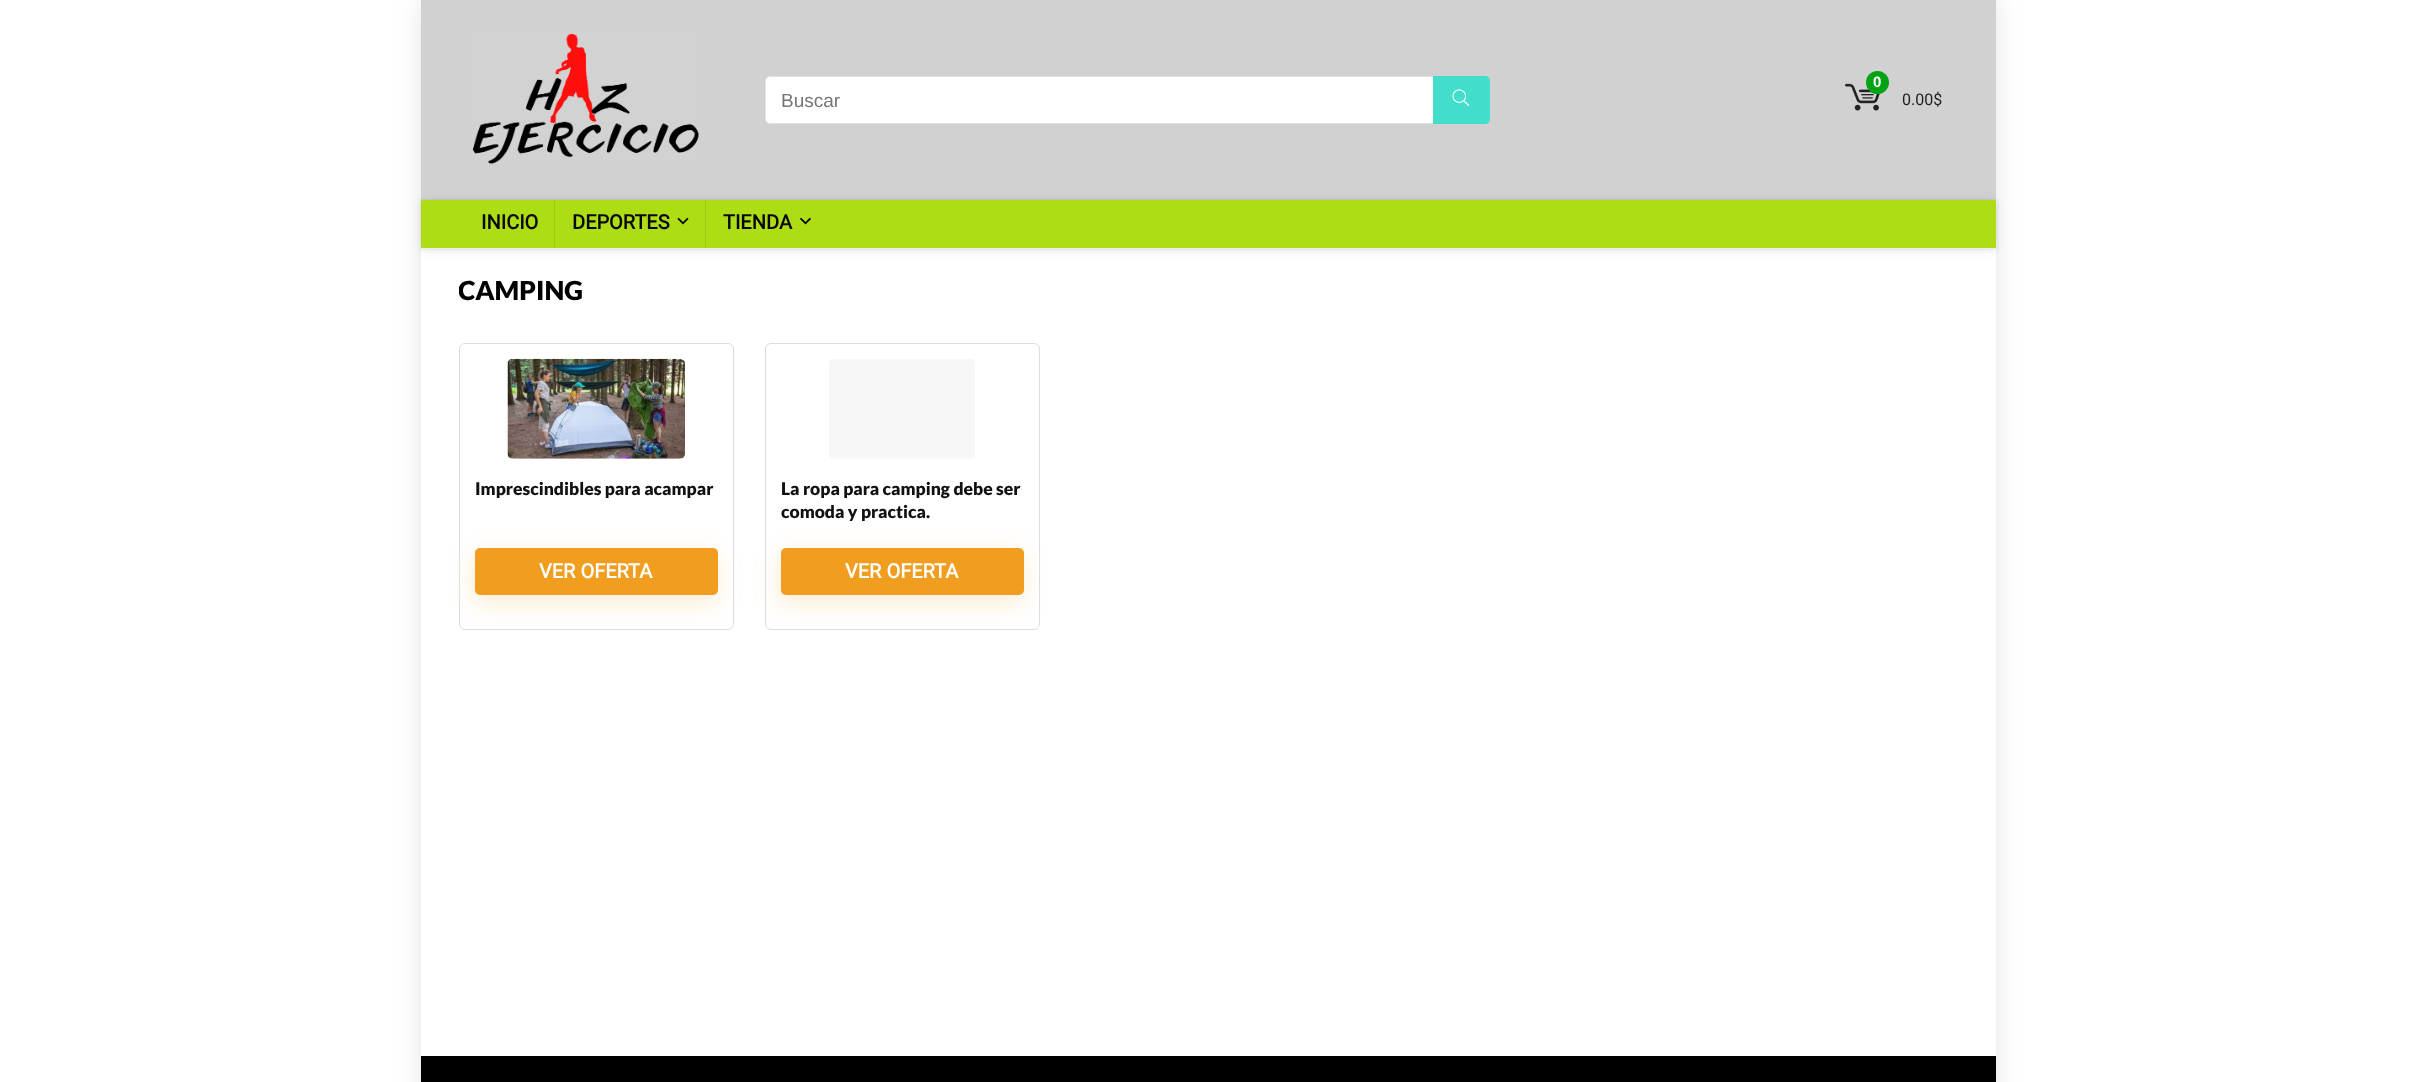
<?xml version="1.0" encoding="UTF-8"?>
<svg xmlns="http://www.w3.org/2000/svg" width="2416" height="1082">
    <defs>
        <filter id="blur1" x="-50%" y="-200%" width="200%" height="500%"><feGaussianBlur stdDeviation="12.5"/></filter>
        <filter id="blur2" x="-50%" y="-200%" width="200%" height="500%"><feGaussianBlur stdDeviation="5"/></filter>
        <clipPath id="clip1"><rect x="459" y="274" width="1500" height="31"/></clipPath>
        <filter id="blur3" x="-50%" y="-200%" width="200%" height="500%"><feGaussianBlur stdDeviation="12"/></filter>
    </defs>
    <rect width="100%" height="100%" fill="#FFFFFF"/>
    <rect x="421" y="0" width="1575" height="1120" fill="#000000" fill-opacity="0.1" filter="url(#blur1)"/>
    <rect x="421" y="249" width="1575" height="807" fill="#FFFFFF"/>
    <rect x="421" y="0" width="1575" height="200" fill="#D1D1D1"/>
    <image x="472" y="33" width="227" height="131" href="img_01.png"/>
    <rect x="765.5" y="76.5" width="724" height="47" rx="4.5" fill="#FFFFFF" stroke="#E1E1E1"/>
    <text x="781" y="107" font-family="Liberation Sans" font-size="19" fill="#757575">Buscar</text>
    <path d="M 1433 76 H 1485 C 1488 76 1490 78 1490 81 V 119 C 1490 122 1488 124 1485 124 H 1433 Z" fill="#44DDCB"/>
    <image x="1452" y="89" width="18" height="17" href="img_02.png"/>
    <image x="1845" y="83" width="35" height="28" href="img_03.png"/>
    <circle cx="1877.5" cy="82.5" r="11.5" fill="#00A313"/>
    <text x="1873" y="87" font-family="Liberation Sans" font-size="15" font-weight="700" fill="#FFFFFF">0</text>
    <text x="1902" y="105" font-family="Roboto" font-size="16" fill="#222222">0.00$</text>
    <rect x="420.5" y="199.5" width="1577" height="50" fill="none" stroke="#000000" stroke-opacity="0.03"/>
    <rect x="421" y="201" width="1575" height="49" fill="#000000" fill-opacity="0.1" filter="url(#blur2)"/>
    <rect x="421" y="200" width="1575" height="48" fill="#ADDD15"/>
    <rect x="421" y="248" width="1575" height="1" fill="#EEEEEE"/>
    <rect x="554" y="200" width="1" height="48" fill="#9FCB13"/>
    <text x="481" y="229" font-family="Roboto" font-size="20" font-weight="700" fill="#0A0707">INICIO</text>
    <rect x="705" y="200" width="1" height="48" fill="#9FCB13"/>
    <text x="572" y="229" font-family="Roboto" font-size="20" font-weight="700" fill="#0A0707">DEPORTES</text>
    <image x="677" y="217" width="12" height="8" href="img_04.png"/>
    <text x="723" y="229" font-family="Roboto" font-size="20" font-weight="700" fill="#0A0707">TIENDA</text>
    <image x="800" y="217" width="11" height="8" href="img_05.png"/>
    <g clip-path="url(#clip1)">
        <text x="458" y="300" font-family="Lato" font-size="26.25" font-weight="900" fill="#000000">CAMPING</text>
    </g>
    <rect x="459.5" y="343.5" width="274" height="286" rx="5.5" fill="none" stroke="#DDDDDD"/>
    <image x="507" y="358" width="178" height="101" href="img_06.png"/>
    <text x="475" y="495" font-family="Lato" font-size="17.5" font-weight="900" fill="#111111">Imprescindibles para acampar</text>
    <rect x="474" y="555" width="242" height="48" rx="5" fill="#F19E20" fill-opacity="0.2" filter="url(#blur3)"/>
    <rect x="475" y="548" width="243" height="47" rx="5" fill="#F19E20"/>
    <text x="539" y="578" font-family="Roboto" font-size="20" font-weight="700" fill="#FFFFFF">VER OFERTA</text>
    <rect x="765.5" y="343.5" width="274" height="286" rx="5.5" fill="none" stroke="#DDDDDD"/>
    <image x="829" y="359" width="146" height="100" href="img_07.png"/>
    <text font-family="Lato" font-size="17.5" font-weight="900" fill="#111111">
        <tspan x="781" y="495">La ropa para camping debe ser</tspan>
        <tspan x="781" y="518">comoda y practica.</tspan>
    </text>
    <rect x="780" y="555" width="243" height="48" rx="5" fill="#F19E20" fill-opacity="0.2" filter="url(#blur3)"/>
    <rect x="781" y="548" width="243" height="47" rx="5" fill="#F19E20"/>
    <text x="845" y="578" font-family="Roboto" font-size="20" font-weight="700" fill="#FFFFFF">VER OFERTA</text>
    <rect x="421" y="1056" width="1575" height="26" fill="#000000"/>
</svg>
